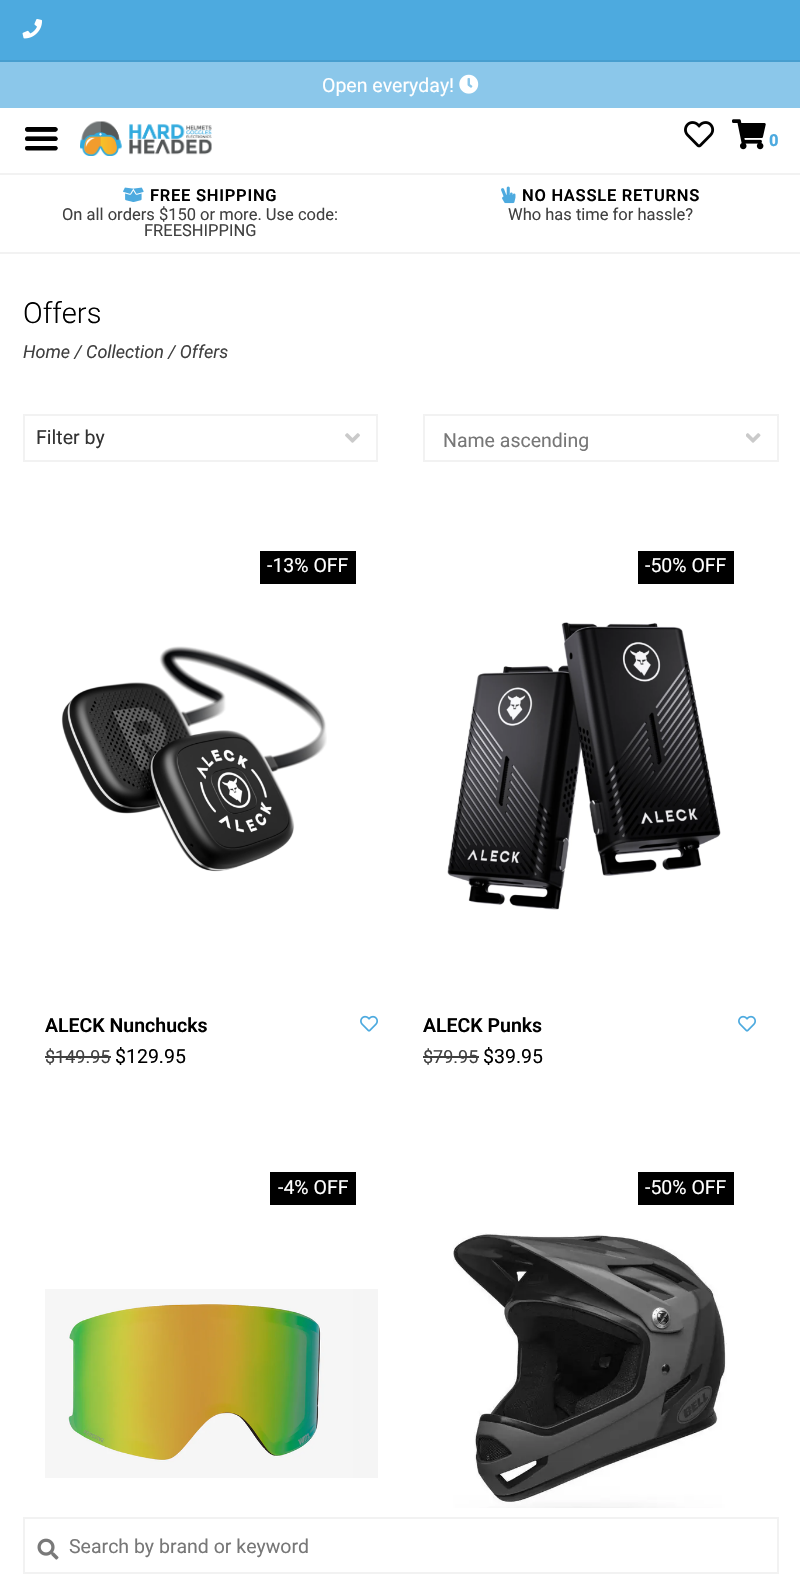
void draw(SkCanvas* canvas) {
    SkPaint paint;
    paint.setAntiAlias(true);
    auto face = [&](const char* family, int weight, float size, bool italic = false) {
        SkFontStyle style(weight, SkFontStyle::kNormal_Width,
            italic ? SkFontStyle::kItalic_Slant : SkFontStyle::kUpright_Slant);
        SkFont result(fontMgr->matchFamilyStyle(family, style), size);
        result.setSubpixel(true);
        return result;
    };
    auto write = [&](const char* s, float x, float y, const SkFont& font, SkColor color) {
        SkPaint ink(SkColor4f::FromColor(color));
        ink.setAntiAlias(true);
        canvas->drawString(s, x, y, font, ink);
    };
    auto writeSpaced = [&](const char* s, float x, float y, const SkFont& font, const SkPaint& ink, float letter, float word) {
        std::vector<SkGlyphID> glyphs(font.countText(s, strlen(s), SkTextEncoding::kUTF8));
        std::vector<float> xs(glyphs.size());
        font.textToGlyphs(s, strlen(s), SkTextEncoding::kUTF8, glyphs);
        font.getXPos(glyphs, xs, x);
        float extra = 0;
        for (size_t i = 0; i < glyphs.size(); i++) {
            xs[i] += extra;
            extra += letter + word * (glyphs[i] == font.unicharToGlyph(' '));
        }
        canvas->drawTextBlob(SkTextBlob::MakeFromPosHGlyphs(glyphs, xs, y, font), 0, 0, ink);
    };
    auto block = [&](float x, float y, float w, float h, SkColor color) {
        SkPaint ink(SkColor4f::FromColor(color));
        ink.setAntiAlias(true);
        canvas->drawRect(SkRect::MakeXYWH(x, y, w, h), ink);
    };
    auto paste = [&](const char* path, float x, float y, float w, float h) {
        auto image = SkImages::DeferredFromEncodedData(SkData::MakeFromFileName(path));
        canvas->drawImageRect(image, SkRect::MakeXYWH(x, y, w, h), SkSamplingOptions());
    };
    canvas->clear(SK_ColorWHITE);
    block(0, 0, 800, 60, SkColorSetRGB(77, 170, 223));
    block(0, 60, 800, 2, SkColorSetRGB(71, 158, 207));
    paste("pic1.png", 22, 19, 20, 20);
    block(0, 62, 800, 46, SkColorSetRGB(139, 199, 234));
    auto kFont1 = face("Roboto", 400, 19.5f);
    write("Open everyday!", 322, 92, kFont1, SK_ColorWHITE);
    paste("pic2.png", 459, 74, 20, 20);
    paste("pic3.png", 25, 127, 33, 24);
    paste("pic4.png", 80, 121, 132, 35);
    paste("pic5.png", 684, 121, 31, 27);
    paste("pic6.png", 732, 119, 34, 31);
    auto kFont2 = face("Roboto", 800, 16.5f);
    write("0", 769, 146, kFont2, SkColorSetRGB(77, 170, 223));
    block(0, 173, 800, 2, SkColorSetRGB(242, 242, 242));
    block(0, 252, 800, 2, SkColorSetRGB(242, 242, 242));
    paste("pic7.png", 123, 187, 21, 15);
    auto kFont3 = face("Roboto", 600, 16.5f);
    paint.setColor(SK_ColorBLACK);
    writeSpaced("FREE SHIPPING", 150, 201, kFont3, paint, 0.75f, 0);
    auto kFont4 = face("Roboto", 400, 16.5f);
    write("On all orders $150 or more. Use code:", 62, 220, kFont4, SkColorSetRGB(64, 64, 64));
    write("FREESHIPPING", 144, 236, kFont4, SkColorSetRGB(64, 64, 64));
    paste("pic8.png", 501, 186, 15, 18);
    writeSpaced("NO HASSLE RETURNS", 522, 201, kFont3, paint, 0.75f, 0);
    write("Who has time for hassle?", 508, 220, kFont4, SkColorSetRGB(64, 64, 64));
    auto kFont5 = face("Roboto", 300, 29);
    write("Offers", 23, 323, kFont5, SK_ColorBLACK);
    auto kFont6 = face("Roboto", 400, 18, true);
    write("Home / Collection / Offers", 23, 358, kFont6, SkColorSetRGB(64, 64, 64));
    paste("pic9.png", 345, 433, 15, 10);
    paint.setStyle(SkPaint::kStroke_Style);
    paint.setStrokeWidth(2);
    paint.setColor(SkColorSetRGB(242, 242, 242));
    canvas->drawRect(SkRect::MakeXYWH(24, 415, 353, 46), paint);
    write("Filter by", 36, 444, kFont1, SkColorSetRGB(51, 51, 51));
    paste("pic10.png", 746, 433, 15, 10);
    canvas->drawRect(SkRect::MakeXYWH(424, 415, 354, 46), paint);
    write("Name ascending", 443, 447, kFont1, SkColorSetRGB(119, 119, 119));
    block(260, 551, 96, 33, SK_ColorBLACK);
    write("-13% OFF", 267, 572, kFont1, SK_ColorWHITE);
    paste("pic11.png", 61, 646, 266, 226);
    auto kFont7 = face("Roboto", 600, 19.5f);
    write("ALECK Nunchucks", 45, 1032, kFont7, SK_ColorBLACK);
    paste("pic12.png", 360, 1015, 18, 17);
    auto kFont8 = face("Roboto", 400, 18);
    write("$149.95", 45, 1063, kFont8, SkColorSetRGB(64, 64, 64));
    block(45, 1056, 66, 2, SkColorSetRGB(64, 64, 64));
    write("$129.95", 115, 1063, kFont1, SK_ColorBLACK);
    block(638, 551, 96, 33, SK_ColorBLACK);
    write("-50% OFF", 645, 572, kFont1, SK_ColorWHITE);
    paste("pic13.png", 447, 622, 274, 288);
    write("ALECK Punks", 423, 1032, kFont7, SK_ColorBLACK);
    paste("pic12.png", 738, 1015, 18, 17);
    write("$79.95", 423, 1063, kFont8, SkColorSetRGB(64, 64, 64));
    block(423, 1056, 56, 2, SkColorSetRGB(64, 64, 64));
    write("$39.95", 483, 1063, kFont1, SK_ColorBLACK);
    block(270, 1172, 86, 33, SK_ColorBLACK);
    write("-4% OFF", 278, 1194, kFont1, SK_ColorWHITE);
    paste("pic14.png", 45, 1289, 333, 189);
    block(638, 1172, 96, 33, SK_ColorBLACK);
    write("-50% OFF", 645, 1194, kFont1, SK_ColorWHITE);
    paste("pic15.png", 453, 1233, 274, 275);
    canvas->drawRect(SkRect::MakeXYWH(24, 1518, 754, 55), paint);
    paste("pic16.png", 37, 1538, 22, 22);
    write("Search by brand or keyword", 69, 1553, kFont1, SkColorSetRGB(119, 119, 119));
}
